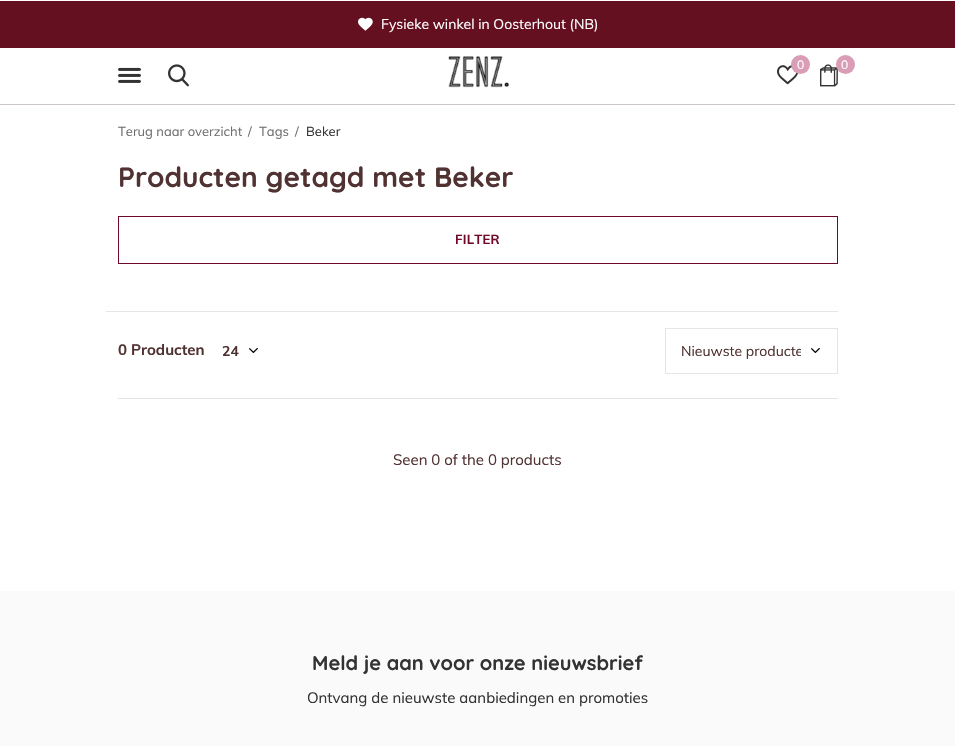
void draw(SkCanvas* canvas) {
    SkPaint paint;
    paint.setAntiAlias(true);
    auto face = [&](const char* family, int weight, float size, bool italic = false) {
        SkFontStyle style(weight, SkFontStyle::kNormal_Width,
            italic ? SkFontStyle::kItalic_Slant : SkFontStyle::kUpright_Slant);
        SkFont result(fontMgr->matchFamilyStyle(family, style), size);
        result.setSubpixel(true);
        return result;
    };
    auto write = [&](const char* s, float x, float y, const SkFont& font, SkColor color) {
        SkPaint ink(SkColor4f::FromColor(color));
        ink.setAntiAlias(true);
        canvas->drawString(s, x, y, font, ink);
    };
    auto writeSpaced = [&](const char* s, float x, float y, const SkFont& font, const SkPaint& ink, float letter, float word) {
        std::vector<SkGlyphID> glyphs(font.countText(s, strlen(s), SkTextEncoding::kUTF8));
        std::vector<float> xs(glyphs.size());
        font.textToGlyphs(s, strlen(s), SkTextEncoding::kUTF8, glyphs);
        font.getXPos(glyphs, xs, x);
        float extra = 0;
        for (size_t i = 0; i < glyphs.size(); i++) {
            xs[i] += extra;
            extra += letter + word * (glyphs[i] == font.unicharToGlyph(' '));
        }
        canvas->drawTextBlob(SkTextBlob::MakeFromPosHGlyphs(glyphs, xs, y, font), 0, 0, ink);
    };
    auto block = [&](float x, float y, float w, float h, SkColor color) {
        SkPaint ink(SkColor4f::FromColor(color));
        ink.setAntiAlias(true);
        canvas->drawRect(SkRect::MakeXYWH(x, y, w, h), ink);
    };
    auto paste = [&](const char* path, float x, float y, float w, float h) {
        auto image = SkImages::DeferredFromEncodedData(SkData::MakeFromFileName(path));
        canvas->drawImageRect(image, SkRect::MakeXYWH(x, y, w, h), SkSamplingOptions());
    };
    canvas->clear(SK_ColorWHITE);
    block(0, 1, 955, 47, SkColorSetRGB(100, 16, 32));
    paste("pic1.png", 358, 17, 15, 14);
    auto kFont1 = face("Muli", 400, 14);
    write("Fysieke winkel in Oosterhout (NB)", 381, 29, kFont1, SK_ColorWHITE);
    paste("pic2.png", 448, 56, 61, 32);
    paste("pic3.png", 168, 64, 21, 23);
    paste("pic4.png", 777, 65, 21, 20);
    paint.setColor(SkColorSetRGB(217, 157, 182));
    canvas->drawCircle(800.5f, 64.5f, 9.5f, paint);
    auto kFont2 = face("Muli", 400, 12);
    write("0", 797, 69, kFont2, SK_ColorWHITE);
    paste("pic5.png", 820, 64, 18, 23);
    canvas->drawCircle(845.5f, 64.5f, 9.5f, paint);
    write("0", 841, 69, kFont2, SK_ColorWHITE);
    paste("pic6.png", 118, 67, 23, 16);
    block(0, 104, 955, 1, SkColorSetRGB(204, 198, 198));
    auto kFont3 = face("Muli", 400, 13);
    write("Terug naar overzicht", 118, 136, kFont3, SkColorSetRGB(112, 112, 112));
    write("/", 248, 136, kFont3, SkColorSetRGB(112, 112, 112));
    write("Tags", 259, 136, kFont3, SkColorSetRGB(112, 112, 112));
    write("/", 295, 136, kFont3, SkColorSetRGB(112, 112, 112));
    write("Beker", 306, 136, kFont3, SkColorSetRGB(51, 51, 51));
    auto kFont4 = face("Quicksand", 700, 28);
    write("Producten getagd met Beker", 118, 187, kFont4, SkColorSetRGB(81, 50, 50));
    paint.setStyle(SkPaint::kStroke_Style);
    paint.setStrokeWidth(1);
    paint.setColor(SkColorSetRGB(112, 9, 40));
    canvas->drawRect(SkRect::MakeXYWH(118.5f, 216.5f, 719, 47), paint);
    auto kFont5 = face("Muli", 700, 13);
    paint.setStyle(SkPaint::kFill_Style);
    writeSpaced("FILTER", 455, 244, kFont5, paint, 0.25f, 0);
    block(106, 311, 732, 1, SkColorSetRGB(229, 229, 229));
    auto kFont6 = face("Muli", 700, 15);
    write("0 Producten", 118, 355, kFont6, SkColorSetRGB(81, 50, 50));
    paste("pic7.png", 249, 348, 9, 5);
    auto kFont7 = face("Muli", 700, 14);
    write("24", 222, 356, kFont7, SkColorSetRGB(81, 50, 50));
    paste("pic7.png", 811, 348, 9, 5);
    paint.setStyle(SkPaint::kStroke_Style);
    paint.setColor(SkColorSetRGB(229, 229, 229));
    canvas->drawRect(SkRect::MakeXYWH(665.5f, 328.5f, 172, 45), paint);
    canvas->save();
    canvas->clipRect(SkRect::MakeXYWH(681, 342, 120, 18));
    write("Nieuwste producte", 681, 356, kFont1, SkColorSetRGB(81, 50, 50));
    canvas->restore();
    block(118, 398, 720, 1, SkColorSetRGB(229, 229, 229));
    auto kFont8 = face("Muli", 400, 15);
    write("Seen 0 of the 0 products", 393, 465, kFont8, SkColorSetRGB(81, 50, 50));
    block(0, 591, 955, 155, SkColorSetRGB(250, 250, 250));
    auto kFont9 = face("Quicksand", 700, 20);
    write("Meld je aan voor onze nieuwsbrief", 312, 670, kFont9, SkColorSetRGB(51, 51, 51));
    write("Ontvang de nieuwste aanbiedingen en promoties", 307, 703, kFont8, SkColorSetRGB(51, 51, 51));
}
